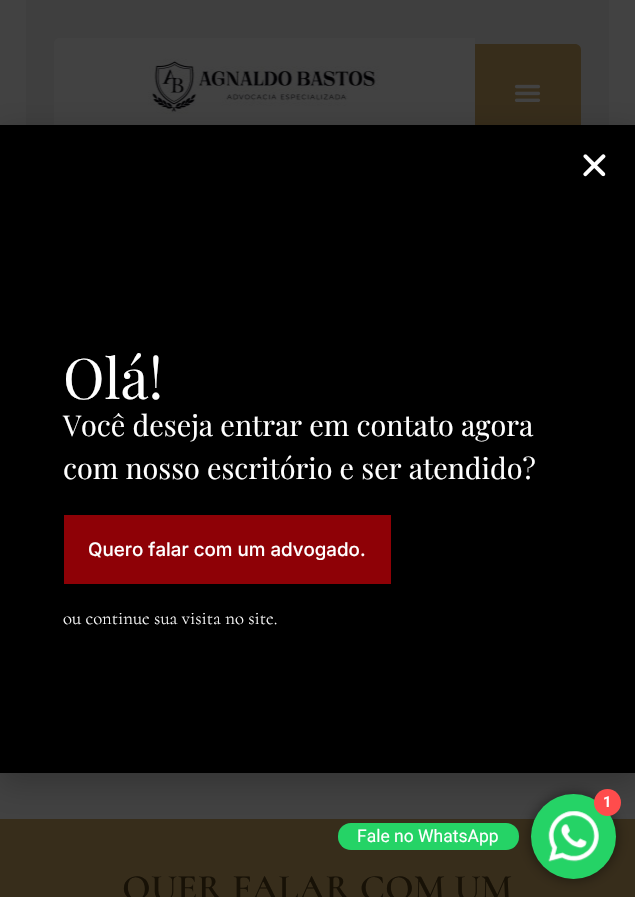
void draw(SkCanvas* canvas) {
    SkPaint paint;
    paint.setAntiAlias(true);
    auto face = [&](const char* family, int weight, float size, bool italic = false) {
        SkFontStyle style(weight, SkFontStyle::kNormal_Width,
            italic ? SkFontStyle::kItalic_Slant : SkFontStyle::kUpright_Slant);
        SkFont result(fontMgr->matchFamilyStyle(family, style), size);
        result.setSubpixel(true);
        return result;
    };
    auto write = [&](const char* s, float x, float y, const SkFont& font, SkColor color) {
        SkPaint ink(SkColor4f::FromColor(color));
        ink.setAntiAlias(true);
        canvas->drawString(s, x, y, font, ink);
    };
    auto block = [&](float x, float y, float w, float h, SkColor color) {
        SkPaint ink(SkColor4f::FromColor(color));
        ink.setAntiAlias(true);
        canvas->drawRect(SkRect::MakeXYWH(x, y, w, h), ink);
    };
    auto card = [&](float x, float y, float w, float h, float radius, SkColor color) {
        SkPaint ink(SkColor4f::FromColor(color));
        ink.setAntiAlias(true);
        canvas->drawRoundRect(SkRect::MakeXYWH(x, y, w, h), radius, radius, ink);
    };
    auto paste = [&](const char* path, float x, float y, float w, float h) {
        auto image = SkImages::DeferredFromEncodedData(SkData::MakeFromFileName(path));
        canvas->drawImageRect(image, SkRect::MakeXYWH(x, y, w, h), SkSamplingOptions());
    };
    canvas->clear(SkColorSetRGB(66, 66, 66));
    block(26, 0, 583, 125, SkColorSetRGB(63, 63, 63));
    paint.setColor(SkColorSetRGB(66, 66, 66));
    canvas->drawPath(SkPathBuilder().moveTo(60, 38).lineTo(475, 38).lineTo(475, 148).lineTo(60, 148).cubicTo(56.5f, 148, 54, 145.5f, 54, 142).lineTo(54, 44).cubicTo(54, 40.5f, 56.5f, 38, 60, 38).close().detach(), paint);
    paste("pic1.png", 148, 58, 232, 56);
    paint.setColor(SkColorSetRGB(55, 45, 27));
    canvas->drawPath(SkPathBuilder().moveTo(475, 44).lineTo(575, 44).cubicTo(578.5f, 44, 581, 46.5f, 581, 50).lineTo(581, 137).cubicTo(581, 140.5f, 578.5f, 143, 575, 143).lineTo(475, 143).close().detach(), paint);
    paste("pic2.png", 514, 84, 27, 18);
    block(0, 819, 635, 78, SkColorSetRGB(55, 45, 27));
    paint.setColor(SkColorSetARGB(51, 0, 0, 0));
    paint.setMaskFilter(SkMaskFilter::MakeBlur(kNormal_SkBlurStyle, 14.5f));
    canvas->drawRect(SkRect::MakeXYWH(-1, 131, 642, 655), paint);
    paint.setMaskFilter(nullptr);
    block(0, 125, 635, 648, SK_ColorBLACK);
    paste("pic3.png", 583, 154, 23, 23);
    auto kFont1 = face("Playfair Display", 400, 56);
    write("Olá!", 63, 399, kFont1, SK_ColorWHITE);
    auto kFont2 = face("Playfair Display", 400, 28.75f);
    write("Você deseja entrar em contato agora", 63, 436, kFont2, SK_ColorWHITE);
    write("com nosso escritório e ser atendido?", 63, 479, kFont2, SK_ColorWHITE);
    block(64, 515, 327, 69, SkColorSetRGB(142, 1, 6));
    auto kFont3 = face("Inter", 500, 18.75f);
    write("Quero falar com um advogado.", 88, 556, kFont3, SK_ColorWHITE);
    auto kFont4 = face("Cormorant", 300, 18.75f);
    write("ou continue sua visita no site.", 63, 624, kFont4, SK_ColorWHITE);
    card(338, 823, 181, 27, 13, SkColorSetRGB(37, 211, 102));
    paint.setColor(SkColorSetARGB(128, 0, 0, 0));
    paint.setMaskFilter(SkMaskFilter::MakeBlur(kNormal_SkBlurStyle, 7));
    canvas->drawRoundRect(SkRect::MakeXYWH(531, 794, 85, 85), 42.5f, 42.5f, paint);
    paint.setMaskFilter(nullptr);
    paint.setColor(SkColorSetRGB(37, 211, 102));
    canvas->drawCircle(573.5f, 836.5f, 42.5f, paint);
    paste("pic4.png", 548, 811, 51, 51);
    paint.setColor(SkColorSetRGB(255, 76, 76));
    canvas->drawCircle(607.5f, 802.5f, 13.5f, paint);
    auto kFont5 = face("Roboto", 600, 15);
    write("1", 603, 807, kFont5, SK_ColorWHITE);
    auto kFont6 = face("Roboto", 400, 17.5f);
    write("Fale no WhatsApp", 357, 842, kFont6, SK_ColorWHITE);
    auto kFont7 = face("Cormorant", 600, 37.5f);
    write("QUER FALAR COM UM", 122, 900, kFont7, SkColorSetRGB(23, 17, 6));
}
